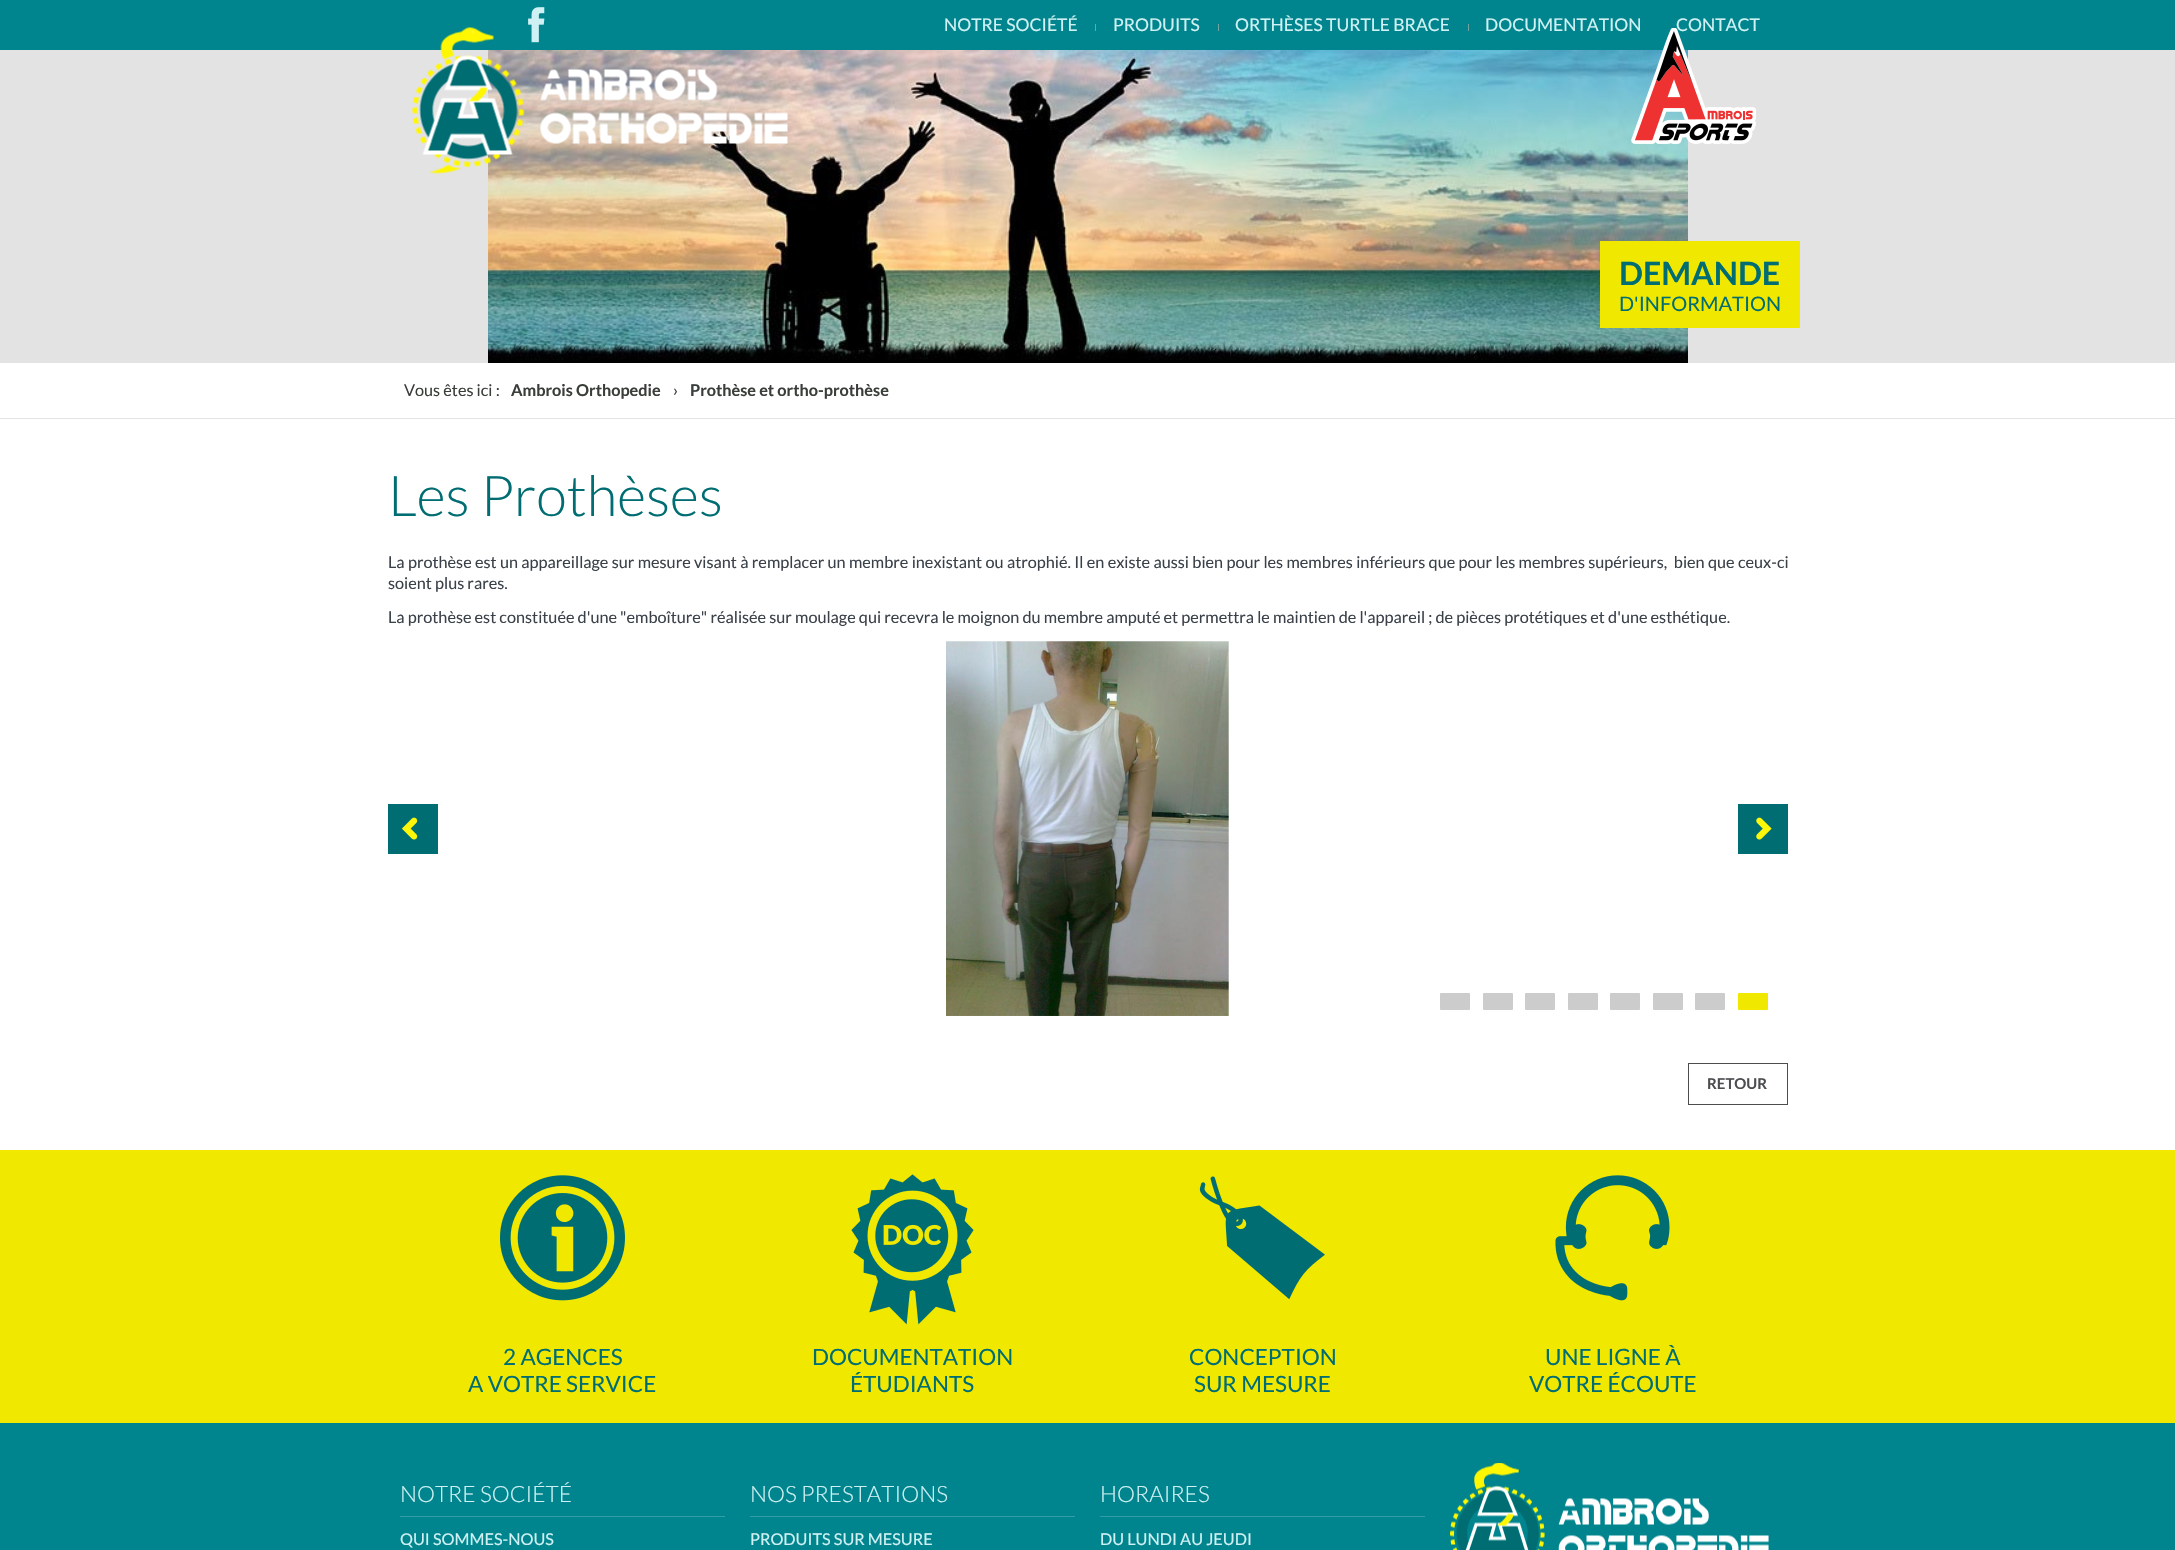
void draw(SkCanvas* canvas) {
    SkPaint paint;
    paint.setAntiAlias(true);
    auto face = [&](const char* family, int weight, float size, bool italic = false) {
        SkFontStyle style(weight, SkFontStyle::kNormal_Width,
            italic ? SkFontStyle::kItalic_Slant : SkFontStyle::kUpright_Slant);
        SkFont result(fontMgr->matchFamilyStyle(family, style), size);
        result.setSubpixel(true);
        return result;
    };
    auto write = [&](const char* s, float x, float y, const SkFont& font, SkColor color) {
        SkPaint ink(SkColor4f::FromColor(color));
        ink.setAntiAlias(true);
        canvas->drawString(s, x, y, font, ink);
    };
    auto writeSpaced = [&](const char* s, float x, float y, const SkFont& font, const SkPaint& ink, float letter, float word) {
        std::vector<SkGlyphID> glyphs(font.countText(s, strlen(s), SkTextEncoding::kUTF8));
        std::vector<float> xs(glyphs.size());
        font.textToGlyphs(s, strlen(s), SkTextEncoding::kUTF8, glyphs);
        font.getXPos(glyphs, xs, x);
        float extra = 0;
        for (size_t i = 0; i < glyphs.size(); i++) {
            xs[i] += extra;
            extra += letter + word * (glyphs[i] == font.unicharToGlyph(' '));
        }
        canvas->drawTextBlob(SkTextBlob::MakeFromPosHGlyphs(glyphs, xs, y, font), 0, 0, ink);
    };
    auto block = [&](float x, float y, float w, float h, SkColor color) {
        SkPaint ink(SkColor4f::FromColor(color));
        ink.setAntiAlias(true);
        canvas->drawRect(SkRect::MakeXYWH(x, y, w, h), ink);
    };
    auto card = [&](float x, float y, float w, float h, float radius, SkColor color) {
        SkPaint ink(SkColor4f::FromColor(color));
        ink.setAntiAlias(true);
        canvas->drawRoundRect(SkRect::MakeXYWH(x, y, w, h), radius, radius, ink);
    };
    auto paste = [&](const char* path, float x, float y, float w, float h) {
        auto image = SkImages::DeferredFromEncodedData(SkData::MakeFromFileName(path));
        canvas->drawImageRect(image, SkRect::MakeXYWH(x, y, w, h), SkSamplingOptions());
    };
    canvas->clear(SK_ColorWHITE);
    block(0, 0, 2175, 50, SkColorSetRGB(0, 133, 142));
    block(0, 50, 2175, 313, SkColorSetRGB(227, 227, 227));
    paste("pic4.png", 488, 50, 1200, 313);
    paste("pic2.png", 412, 27, 376, 147);
    paste("pic1.png", 528, 7, 17, 36);
    auto kFont1 = face("Lato", 400, 17.5f);
    write("NOTRE SOCIÉTÉ", 944, 31, kFont1, SkColorSetRGB(208, 241, 243));
    block(1095, 24, 1, 7, SkColorSetRGB(116, 162, 165));
    write("PRODUITS", 1113, 31, kFont1, SkColorSetRGB(208, 241, 243));
    block(1218, 24, 1, 7, SkColorSetRGB(116, 162, 165));
    write("ORTHÈSES TURTLE BRACE", 1235, 31, kFont1, SkColorSetRGB(208, 241, 243));
    block(1468, 24, 1, 7, SkColorSetRGB(116, 162, 165));
    paste("pic3.png", 1631, 28, 125, 116);
    write("DOCUMENTATION", 1485, 31, kFont1, SkColorSetRGB(208, 241, 243));
    write("CONTACT", 1676, 31, kFont1, SkColorSetRGB(208, 241, 243));
    block(1600, 241, 200, 87, SkColorSetRGB(241, 232, 0));
    auto kFont2 = face("Lato", 700, 32);
    write("DEMANDE", 1619, 285, kFont2, SkColorSetRGB(0, 109, 115));
    auto kFont3 = face("Lato", 400, 20);
    write("D'INFORMATION", 1619, 311, kFont3, SkColorSetRGB(0, 109, 115));
    block(0, 418, 2175, 1, SkColorSetRGB(227, 227, 227));
    auto kFont4 = face("Lato", 400, 16.25f);
    write("Vous êtes ici :", 404, 396, kFont4, SkColorSetRGB(58, 62, 57));
    auto kFont5 = face("Lato", 700, 16.25f);
    write("Ambrois Orthopedie", 511, 396, kFont5, SkColorSetRGB(58, 62, 57));
    write("›", 673, 396, kFont4, SkColorSetRGB(58, 62, 57));
    write("Prothèse et ortho-prothèse", 690, 396, kFont5, SkColorSetRGB(58, 62, 57));
    auto kFont6 = face("Lato", 300, 56.25f);
    write("Les Prothèses", 388, 516, kFont6, SkColorSetRGB(0, 109, 115));
    paint.setColor(SkColorSetRGB(58, 65, 73));
    writeSpaced("La prothèse est un appareillage sur mesure visant à remplacer un membre inexistant ou atrophié. Il en existe aussi bien pour les membres inférieurs que pour les membres supérieurs,  bien que ceux-ci", 388, 568, kFont4, paint, 0, 0.2f);
    write("soient plus rares.", 388, 589, kFont4, SkColorSetRGB(58, 65, 73));
    write("La prothèse est constituée d'une \"emboîture\" réalisée sur moulage qui recevra le moignon du membre amputé et permettra le maintien de l'appareil ; de pièces protétiques et d'une esthétique.", 388, 623, kFont4, SkColorSetRGB(58, 65, 73));
    paste("pic5.png", 946, 641, 283, 375);
    block(388, 804, 50, 50, SkColorSetRGB(0, 109, 115));
    paste("pic6.png", 401, 817, 17, 23);
    block(1738, 804, 50, 50, SkColorSetRGB(0, 109, 115));
    paste("pic7.png", 1756, 817, 16, 23);
    card(1440, 993, 30, 17, 1, SkColorSetRGB(204, 204, 204));
    card(1483, 993, 30, 17, 1, SkColorSetRGB(204, 204, 204));
    card(1525, 993, 30, 17, 1, SkColorSetRGB(204, 204, 204));
    card(1568, 993, 30, 17, 1, SkColorSetRGB(204, 204, 204));
    card(1610, 993, 30, 17, 1, SkColorSetRGB(204, 204, 204));
    card(1653, 993, 30, 17, 1, SkColorSetRGB(204, 204, 204));
    card(1695, 993, 30, 17, 1, SkColorSetRGB(204, 204, 204));
    card(1738, 993, 30, 17, 1, SkColorSetRGB(241, 232, 0));
    paint.setStyle(SkPaint::kStroke_Style);
    paint.setStrokeWidth(1);
    paint.setColor(SkColorSetRGB(76, 77, 79));
    canvas->drawRect(SkRect::MakeXYWH(1688.5f, 1063.5f, 99, 41), paint);
    auto kFont7 = face("Lato", 700, 15);
    write("RETOUR", 1707, 1089, kFont7, SkColorSetRGB(76, 77, 79));
    block(0, 1150, 2175, 273, SkColorSetRGB(241, 232, 0));
    paste("pic8.png", 500, 1175, 125, 126);
    auto kFont8 = face("Lato", 400, 22.5f);
    write("2 AGENCES", 503, 1365, kFont8, SkColorSetRGB(0, 109, 115));
    write("A VOTRE SERVICE", 468, 1392, kFont8, SkColorSetRGB(0, 109, 115));
    paste("pic9.png", 851, 1174, 123, 151);
    write("DOCUMENTATION", 812, 1365, kFont8, SkColorSetRGB(0, 109, 115));
    write("ÉTUDIANTS", 850, 1392, kFont8, SkColorSetRGB(0, 109, 115));
    paste("pic10.png", 1199, 1176, 126, 124);
    write("CONCEPTION", 1189, 1365, kFont8, SkColorSetRGB(0, 109, 115));
    write("SUR MESURE", 1194, 1392, kFont8, SkColorSetRGB(0, 109, 115));
    paste("pic11.png", 1555, 1175, 115, 126);
    write("UNE LIGNE À", 1545, 1365, kFont8, SkColorSetRGB(0, 109, 115));
    write("VOTRE ÉCOUTE", 1529, 1392, kFont8, SkColorSetRGB(0, 109, 115));
    block(0, 1423, 2175, 127, SkColorSetRGB(0, 133, 142));
    auto kFont9 = face("Lato", 300, 22.5f);
    write("NOTRE SOCIÉTÉ", 400, 1502, kFont9, SkColorSetRGB(208, 241, 243));
    block(400, 1516, 325, 1, SkColorSetRGB(51, 157, 165));
    write("QUI SOMMES-NOUS", 400, 1545, kFont4, SkColorSetRGB(208, 241, 243));
    write("NOS PRESTATIONS", 750, 1502, kFont9, SkColorSetRGB(208, 241, 243));
    block(750, 1516, 325, 1, SkColorSetRGB(51, 157, 165));
    write("PRODUITS SUR MESURE", 750, 1545, kFont4, SkColorSetRGB(208, 241, 243));
    write("HORAIRES", 1100, 1502, kFont9, SkColorSetRGB(208, 241, 243));
    block(1100, 1516, 325, 1, SkColorSetRGB(51, 157, 165));
    write("DU LUNDI AU JEUDI", 1100, 1545, kFont4, SkColorSetRGB(208, 241, 243));
    paste("pic12.png", 1450, 1463, 319, 87);
}
